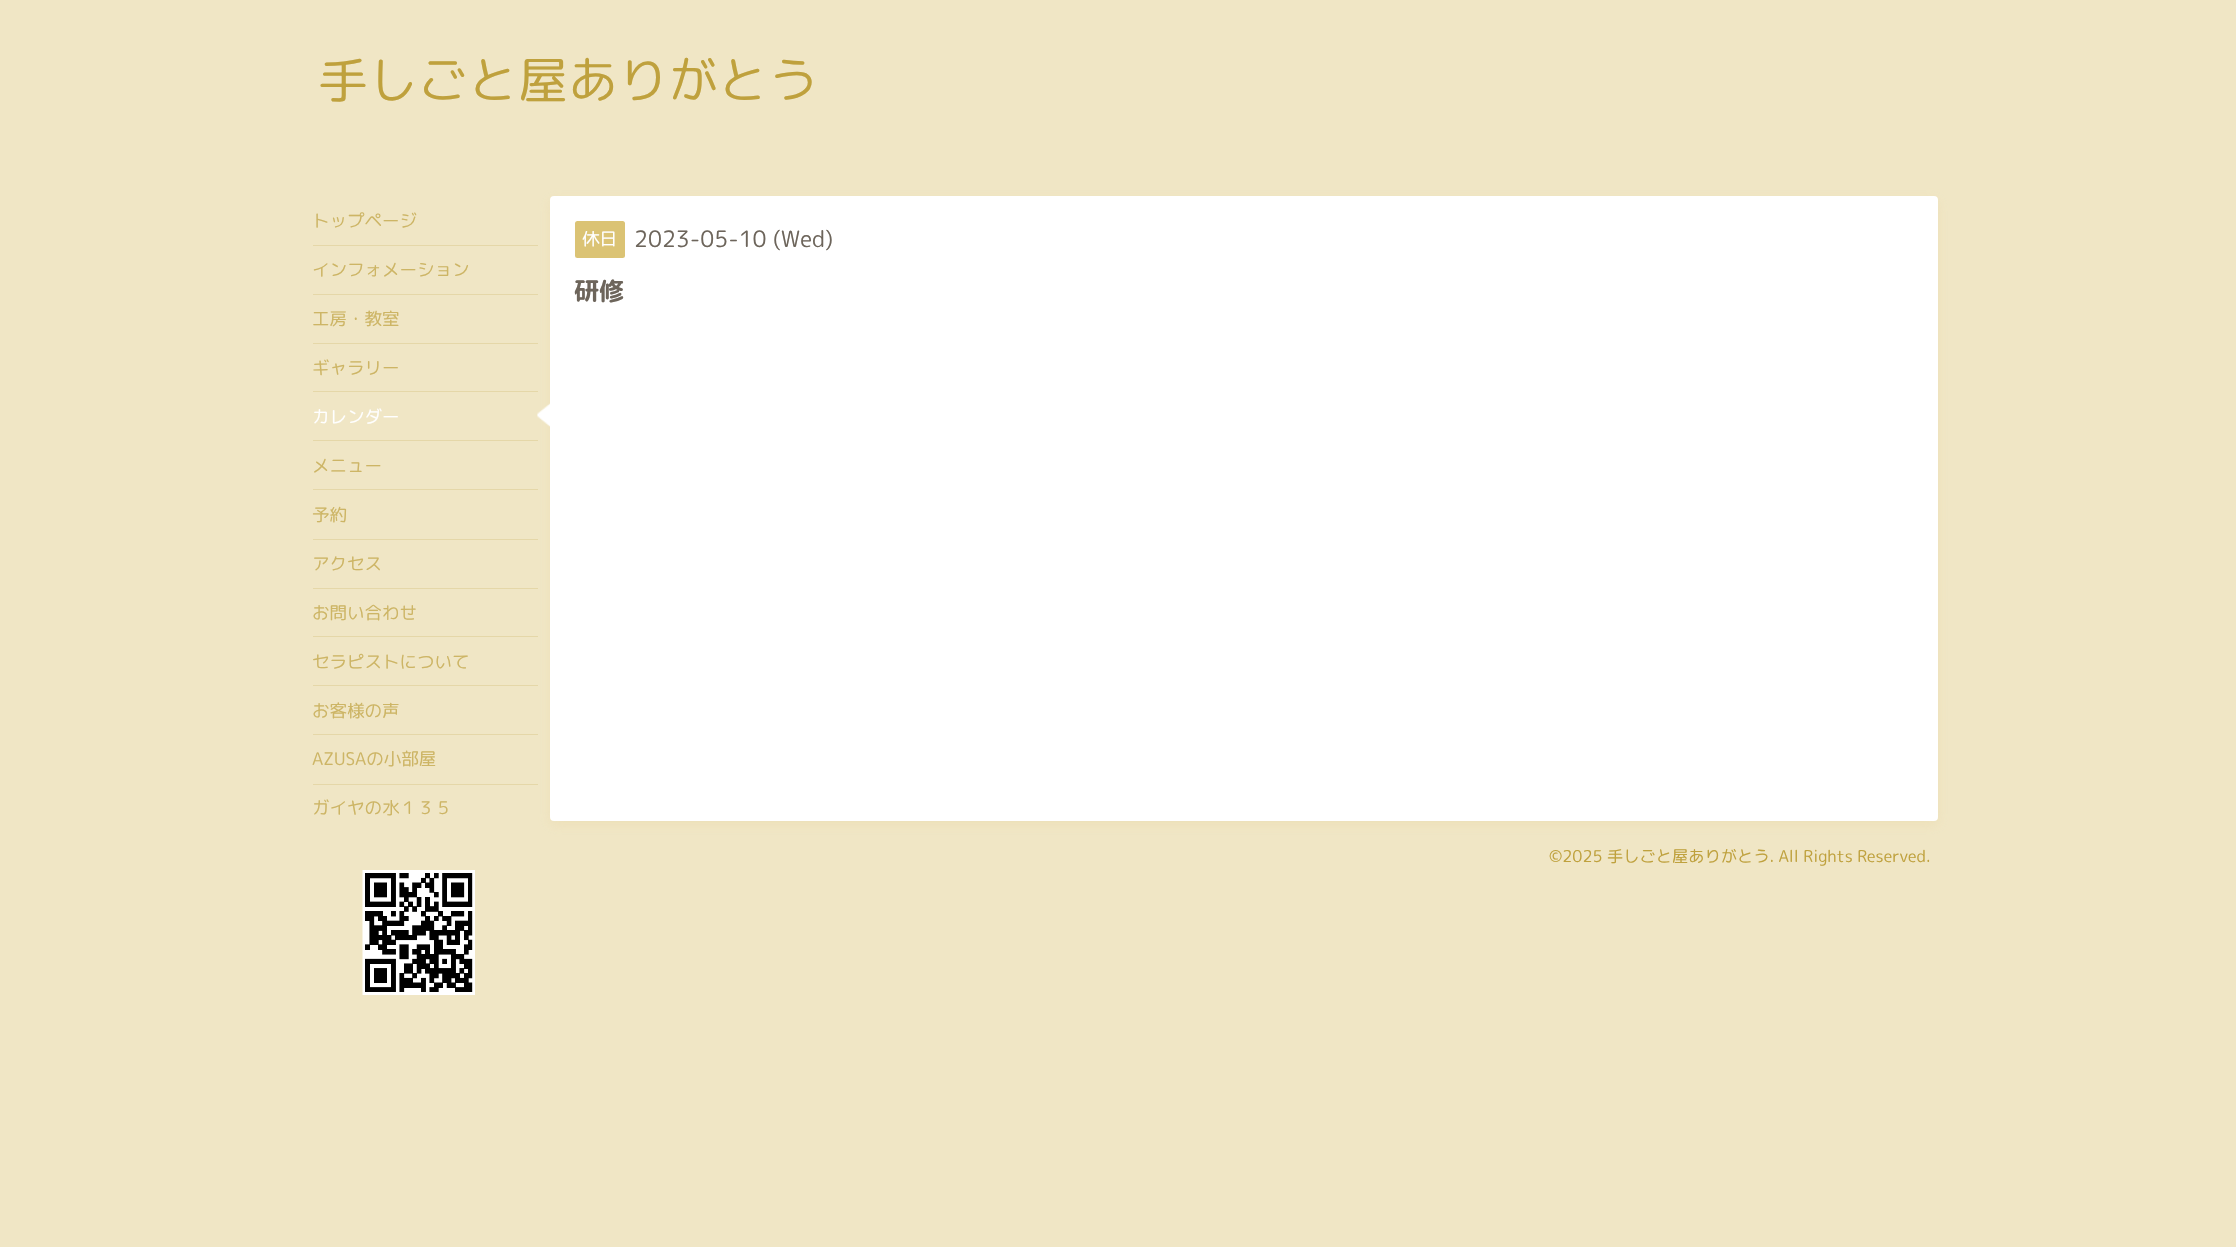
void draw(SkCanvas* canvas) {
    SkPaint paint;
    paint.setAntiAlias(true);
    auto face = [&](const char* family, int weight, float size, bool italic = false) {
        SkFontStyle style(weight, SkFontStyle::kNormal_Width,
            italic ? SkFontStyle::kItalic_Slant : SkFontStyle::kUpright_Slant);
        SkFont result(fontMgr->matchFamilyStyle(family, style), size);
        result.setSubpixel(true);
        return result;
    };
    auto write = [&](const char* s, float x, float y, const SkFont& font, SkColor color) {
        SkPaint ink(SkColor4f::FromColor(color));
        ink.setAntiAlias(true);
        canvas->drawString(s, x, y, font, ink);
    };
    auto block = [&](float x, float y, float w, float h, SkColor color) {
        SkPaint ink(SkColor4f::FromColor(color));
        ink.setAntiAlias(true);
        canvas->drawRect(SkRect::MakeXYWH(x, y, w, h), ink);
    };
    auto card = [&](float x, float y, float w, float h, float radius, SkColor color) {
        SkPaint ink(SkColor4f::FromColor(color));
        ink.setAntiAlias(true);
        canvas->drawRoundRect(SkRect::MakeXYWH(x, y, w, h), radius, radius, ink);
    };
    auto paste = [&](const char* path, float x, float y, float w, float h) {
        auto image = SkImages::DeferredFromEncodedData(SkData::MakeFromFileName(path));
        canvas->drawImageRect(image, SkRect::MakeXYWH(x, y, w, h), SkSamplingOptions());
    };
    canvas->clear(SkColorSetRGB(240, 230, 197));
    auto kFont1 = face("Rounded Mplus 1c", 400, 50);
    write("手しごと屋ありがとう", 318, 98, kFont1, SkColorSetRGB(191, 161, 61));
    auto kFont2 = face("Rounded Mplus 1c", 400, 17.5f);
    write("トップページ", 312, 227, kFont2, SkColorSetRGB(205, 181, 101));
    paint.setColor(SkColorSetARGB(102, 232, 216, 165));
    paint.setMaskFilter(SkMaskFilter::MakeBlur(kNormal_SkBlurStyle, 6));
    canvas->drawRoundRect(SkRect::MakeXYWH(550, 200, 1388, 625), 4, 4, paint);
    paint.setMaskFilter(nullptr);
    block(313, 245, 225, 1, SkColorSetRGB(229, 215, 168));
    write("インフォメーション", 312, 276, kFont2, SkColorSetRGB(205, 181, 101));
    block(313, 294, 225, 1, SkColorSetRGB(229, 215, 168));
    write("工房・教室", 312, 325, kFont2, SkColorSetRGB(205, 181, 101));
    block(313, 343, 225, 1, SkColorSetRGB(229, 215, 168));
    write("ギャラリー", 312, 374, kFont2, SkColorSetRGB(205, 181, 101));
    paste("pic1.png", 537, 403, 13, 24);
    block(313, 391, 225, 1, SkColorSetRGB(229, 215, 168));
    write("カレンダー", 312, 423, kFont2, SK_ColorWHITE);
    block(313, 440, 225, 1, SkColorSetRGB(229, 215, 168));
    write("メニュー", 312, 472, kFont2, SkColorSetRGB(205, 181, 101));
    block(313, 489, 225, 1, SkColorSetRGB(229, 215, 168));
    write("予約", 312, 521, kFont2, SkColorSetRGB(205, 181, 101));
    block(313, 539, 225, 1, SkColorSetRGB(229, 215, 168));
    write("アクセス", 312, 570, kFont2, SkColorSetRGB(205, 181, 101));
    block(313, 588, 225, 1, SkColorSetRGB(229, 215, 168));
    write("お問い合わせ", 312, 619, kFont2, SkColorSetRGB(205, 181, 101));
    block(313, 636, 225, 1, SkColorSetRGB(229, 215, 168));
    write("セラピストについて", 312, 668, kFont2, SkColorSetRGB(205, 181, 101));
    block(313, 685, 225, 1, SkColorSetRGB(229, 215, 168));
    write("お客様の声", 312, 717, kFont2, SkColorSetRGB(205, 181, 101));
    block(313, 734, 225, 1, SkColorSetRGB(229, 215, 168));
    write("AZUSAの小部屋", 312, 765, kFont2, SkColorSetRGB(205, 181, 101));
    block(313, 784, 225, 1, SkColorSetRGB(229, 215, 168));
    write("ガイヤの水１３５", 312, 814, kFont2, SkColorSetRGB(205, 181, 101));
    paste("pic2.png", 362, 870, 113, 125);
    card(550, 196, 1388, 625, 4, SK_ColorWHITE);
    card(575, 221, 50, 37, 2.5f, SkColorSetRGB(219, 195, 116));
    write("休日", 582, 245, kFont2, SK_ColorWHITE);
    auto kFont3 = face("Rounded Mplus 1c", 400, 22.5f);
    write("2023-05-10 (Wed)", 634, 247, kFont3, SkColorSetRGB(109, 101, 91));
    auto kFont4 = face("Rounded Mplus 1c Bold", 700, 25);
    write("研修", 574, 300, kFont4, SkColorSetRGB(109, 101, 91));
    auto kFont5 = face("Rounded Mplus 1c", 400, 16.25f);
    write("©2025 手しごと屋ありがとう. All Rights Reserved.", 1549, 862, kFont5, SkColorSetRGB(191, 161, 61));
}
